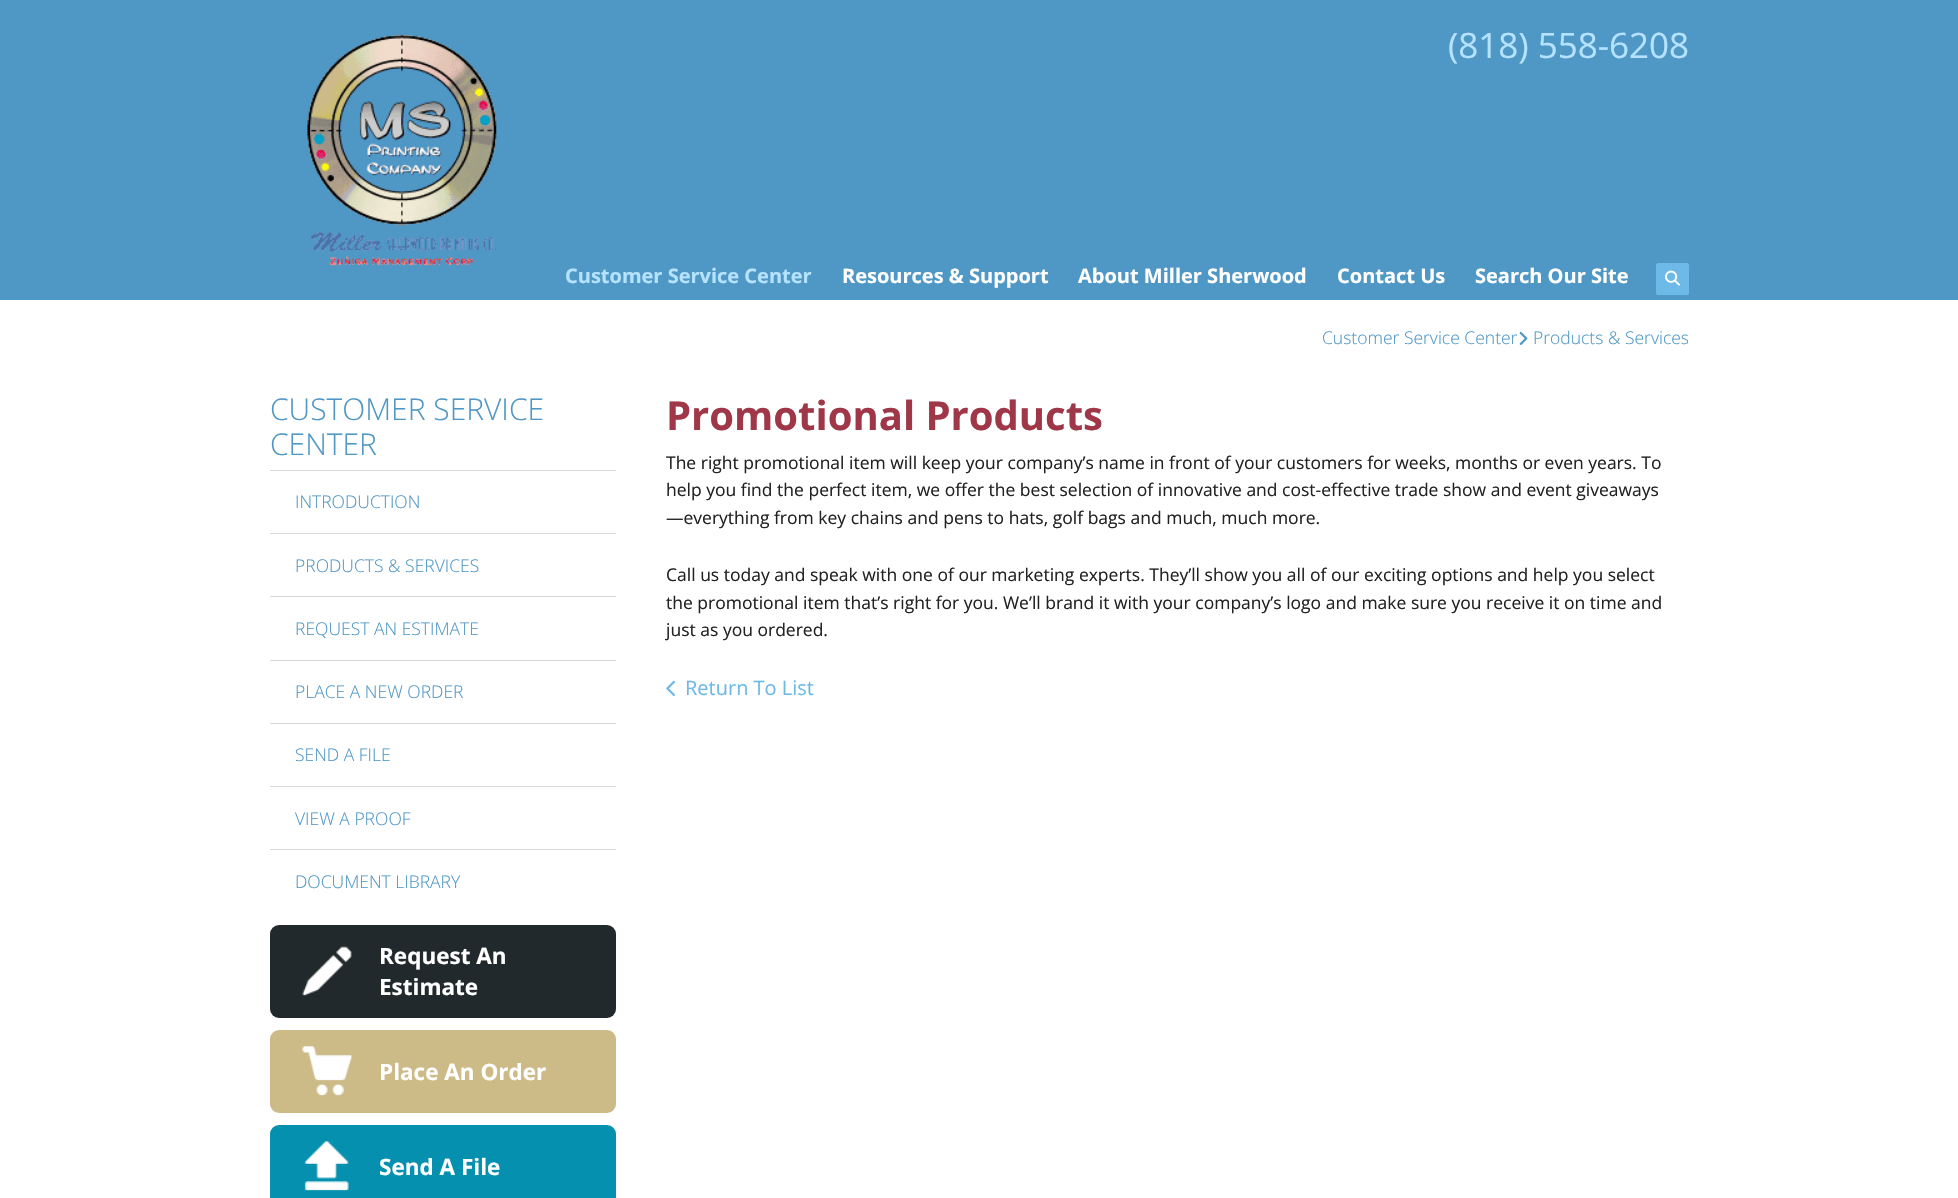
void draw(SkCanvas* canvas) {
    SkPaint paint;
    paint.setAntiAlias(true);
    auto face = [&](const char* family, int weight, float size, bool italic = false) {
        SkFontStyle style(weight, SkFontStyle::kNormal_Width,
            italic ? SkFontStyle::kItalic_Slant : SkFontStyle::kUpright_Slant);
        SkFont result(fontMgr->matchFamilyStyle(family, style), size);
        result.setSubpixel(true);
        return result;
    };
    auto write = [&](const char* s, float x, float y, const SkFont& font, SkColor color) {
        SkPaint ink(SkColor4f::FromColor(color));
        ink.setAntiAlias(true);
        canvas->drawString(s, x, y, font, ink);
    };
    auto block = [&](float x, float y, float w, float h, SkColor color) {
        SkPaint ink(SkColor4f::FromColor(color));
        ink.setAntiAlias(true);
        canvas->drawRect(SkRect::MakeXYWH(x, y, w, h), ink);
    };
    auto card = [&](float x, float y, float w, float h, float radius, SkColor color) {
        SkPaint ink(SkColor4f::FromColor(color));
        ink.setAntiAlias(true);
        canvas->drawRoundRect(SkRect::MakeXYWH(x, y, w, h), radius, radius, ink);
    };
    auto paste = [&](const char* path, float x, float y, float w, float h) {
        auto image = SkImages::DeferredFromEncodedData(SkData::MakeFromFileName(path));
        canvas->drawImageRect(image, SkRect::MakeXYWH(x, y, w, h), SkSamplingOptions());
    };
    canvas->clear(SkColorSetRGB(79, 151, 197));
    paste("pic1.png", 307, 34, 190, 232);
    auto kFont1 = face("Open Sans", 400, 35);
    write("(818) 558-6208", 1448, 58, kFont1, SkColorSetRGB(180, 226, 255));
    auto kFont2 = face("Open Sans", 700, 20);
    write("Customer Service Center", 565, 283, kFont2, SkColorSetRGB(180, 226, 255));
    write("Resources & Support", 842, 283, kFont2, SK_ColorWHITE);
    write("About Miller Sherwood", 1078, 283, kFont2, SK_ColorWHITE);
    write("Contact Us", 1337, 283, kFont2, SK_ColorWHITE);
    write("Search Our Site", 1475, 283, kFont2, SK_ColorWHITE);
    card(1656, 263, 33, 32, 2.5f, SkColorSetRGB(109, 185, 231));
    paste("pic2.png", 1665, 270, 15, 16);
    block(0, 300, 1958, 898, SK_ColorWHITE);
    auto kFont3 = face("Open Sans", 300, 17.5f);
    write("Customer Service Center", 1322, 344, kFont3, SkColorSetRGB(79, 151, 197));
    paste("pic3.png", 1519, 331, 9, 14);
    write("Products & Services", 1533, 344, kFont3, SkColorSetRGB(79, 151, 197));
    block(270, 470, 346, 1, SkColorSetRGB(216, 216, 216));
    auto kFont4 = face("Open Sans", 300, 30);
    write("CUSTOMER SERVICE", 270, 420, kFont4, SkColorSetRGB(79, 151, 197));
    write("CENTER", 270, 455, kFont4, SkColorSetRGB(79, 151, 197));
    block(270, 533, 346, 1, SkColorSetRGB(216, 216, 216));
    write("INTRODUCTION", 295, 508, kFont3, SkColorSetRGB(79, 151, 197));
    block(270, 596, 346, 1, SkColorSetRGB(216, 216, 216));
    write("PRODUCTS & SERVICES", 295, 572, kFont3, SkColorSetRGB(79, 151, 197));
    block(270, 660, 346, 1, SkColorSetRGB(216, 216, 216));
    write("REQUEST AN ESTIMATE", 295, 635, kFont3, SkColorSetRGB(79, 151, 197));
    block(270, 723, 346, 1, SkColorSetRGB(216, 216, 216));
    write("PLACE A NEW ORDER", 295, 698, kFont3, SkColorSetRGB(79, 151, 197));
    block(270, 786, 346, 1, SkColorSetRGB(216, 216, 216));
    write("SEND A FILE", 295, 761, kFont3, SkColorSetRGB(79, 151, 197));
    block(270, 849, 346, 1, SkColorSetRGB(216, 216, 216));
    write("VIEW A PROOF", 295, 825, kFont3, SkColorSetRGB(79, 151, 197));
    write("DOCUMENT LIBRARY", 295, 888, kFont3, SkColorSetRGB(79, 151, 197));
    card(270, 925, 346, 93, 9, SkColorSetRGB(33, 41, 45));
    paste("pic4.png", 302, 946, 50, 50);
    auto kFont5 = face("Open Sans", 700, 22.5f);
    write("Request An", 379, 964, kFont5, SK_ColorWHITE);
    write("Estimate", 379, 995, kFont5, SK_ColorWHITE);
    card(270, 1030, 346, 83, 9, SkColorSetRGB(204, 186, 135));
    paste("pic5.png", 302, 1046, 51, 50);
    write("Place An Order", 379, 1080, kFont5, SK_ColorWHITE);
    card(270, 1125, 346, 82, 9, SkColorSetRGB(6, 144, 175));
    paste("pic6.png", 304, 1141, 45, 50);
    write("Send A File", 379, 1175, kFont5, SK_ColorWHITE);
    auto kFont6 = face("Open Sans", 700, 40);
    write("Promotional Products", 666, 430, kFont6, SkColorSetRGB(160, 55, 72));
    auto kFont7 = face("Open Sans", 400, 17.5f);
    write("The right promotional item will keep your company’s name in front of your customers for weeks, months or even years. To", 666, 469, kFont7, SkColorSetRGB(34, 34, 34));
    write("help you find the perfect item, we offer the best selection of innovative and cost-effective trade show and event giveaways", 666, 496, kFont7, SkColorSetRGB(34, 34, 34));
    write("—everything from key chains and pens to hats, golf bags and much, much more.", 666, 524, kFont7, SkColorSetRGB(34, 34, 34));
    write("Call us today and speak with one of our marketing experts. They’ll show you all of our exciting options and help you select", 666, 581, kFont7, SkColorSetRGB(34, 34, 34));
    write("the promotional item that’s right for you. We’ll brand it with your company’s logo and make sure you receive it on time and", 666, 609, kFont7, SkColorSetRGB(34, 34, 34));
    write("just as you ordered.", 666, 636, kFont7, SkColorSetRGB(34, 34, 34));
    paste("pic7.png", 666, 680, 9, 17);
    auto kFont8 = face("Open Sans", 400, 20);
    write("Return To List", 685, 695, kFont8, SkColorSetRGB(109, 185, 231));
}
